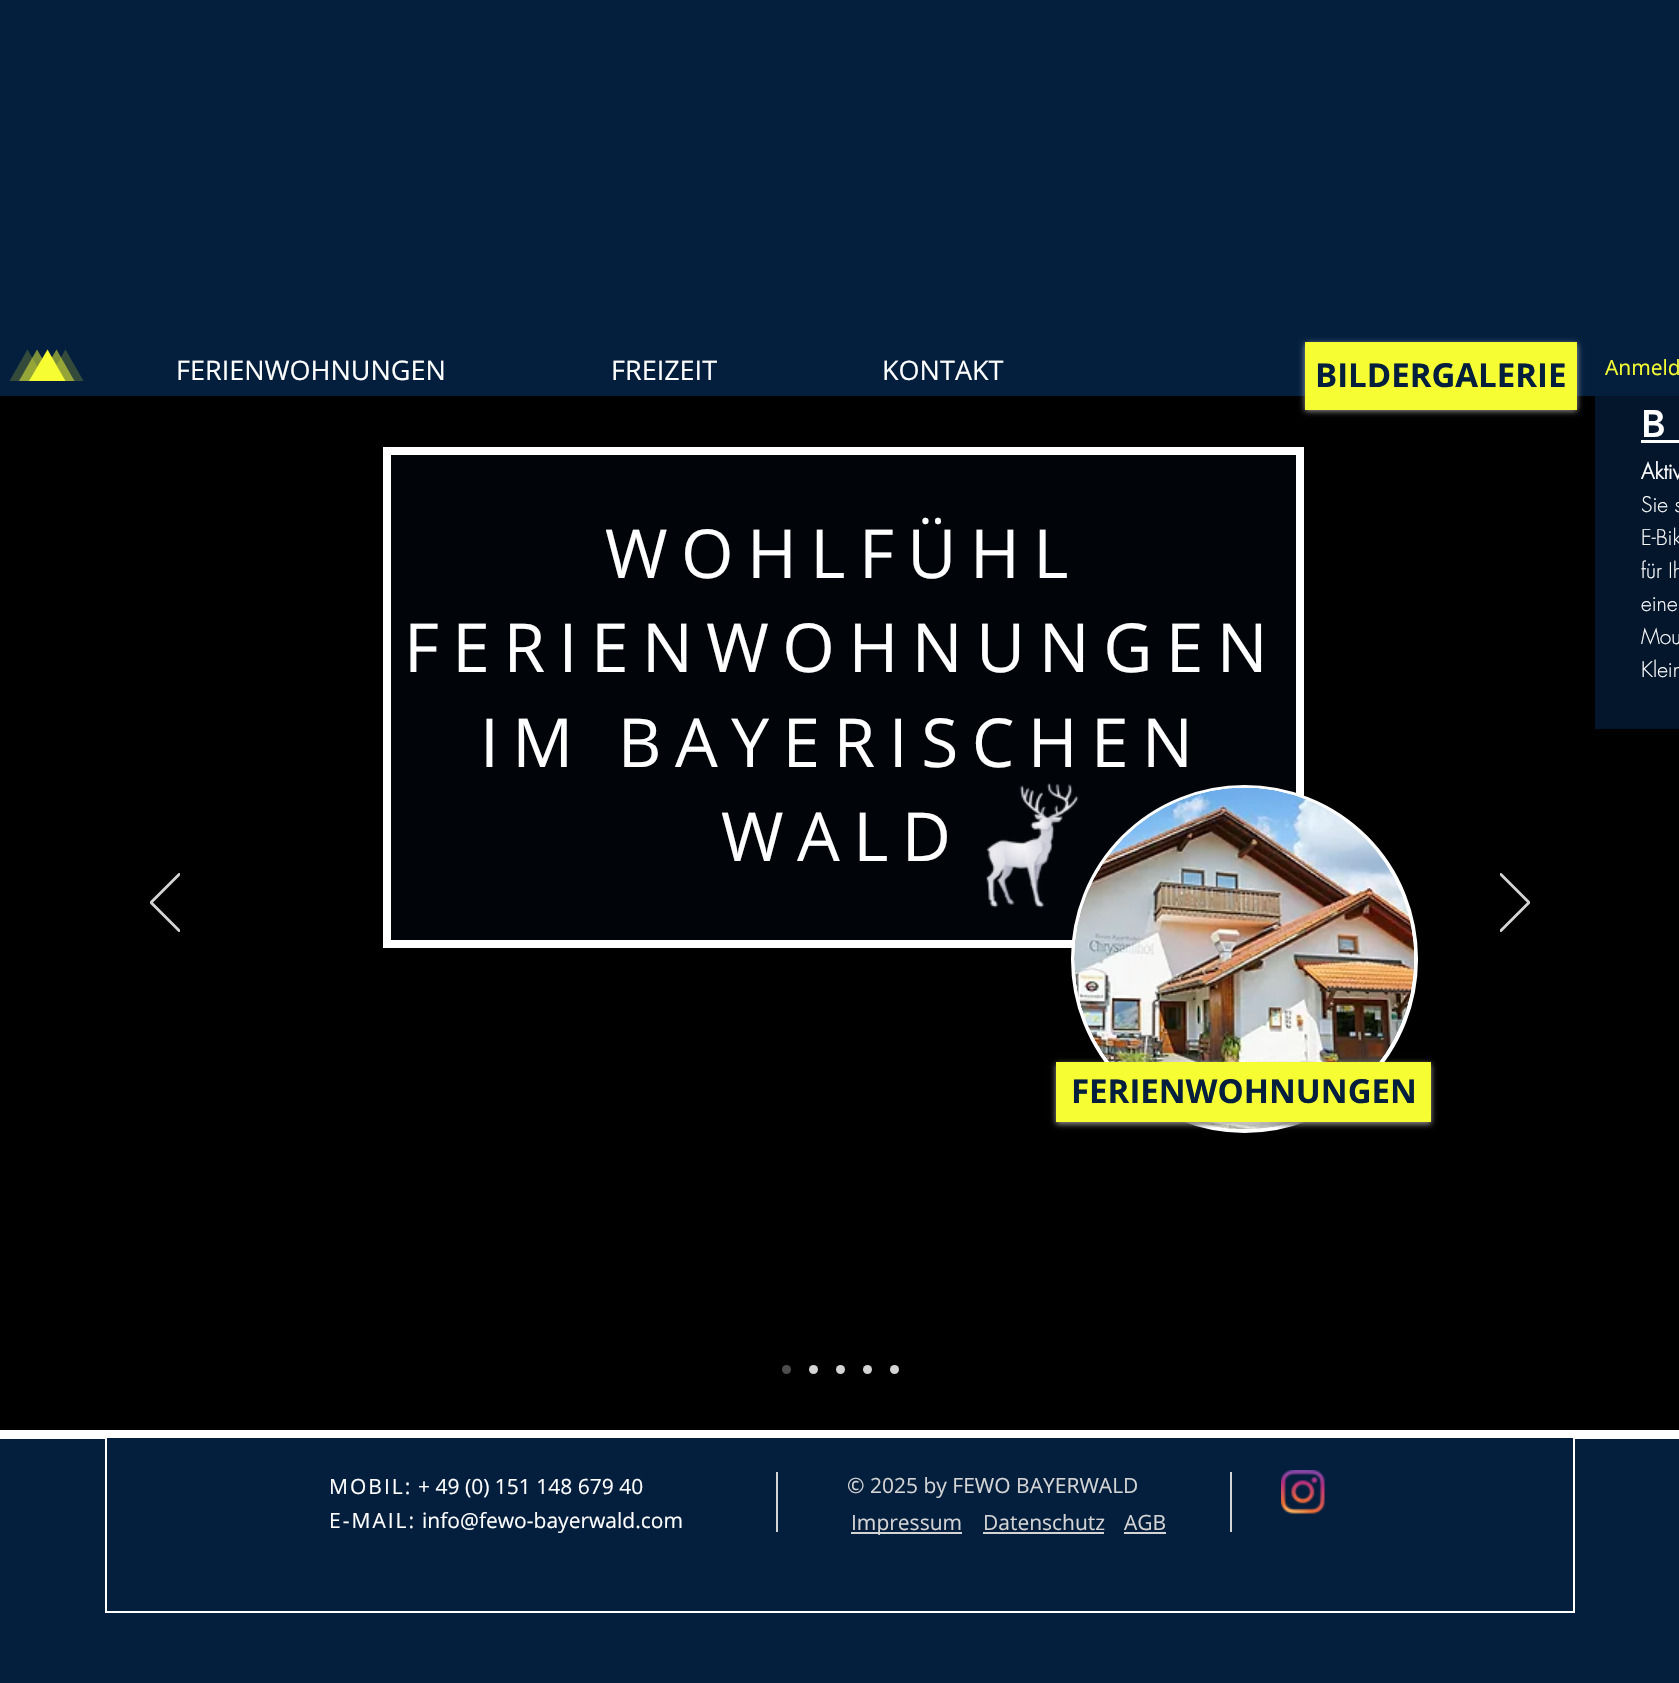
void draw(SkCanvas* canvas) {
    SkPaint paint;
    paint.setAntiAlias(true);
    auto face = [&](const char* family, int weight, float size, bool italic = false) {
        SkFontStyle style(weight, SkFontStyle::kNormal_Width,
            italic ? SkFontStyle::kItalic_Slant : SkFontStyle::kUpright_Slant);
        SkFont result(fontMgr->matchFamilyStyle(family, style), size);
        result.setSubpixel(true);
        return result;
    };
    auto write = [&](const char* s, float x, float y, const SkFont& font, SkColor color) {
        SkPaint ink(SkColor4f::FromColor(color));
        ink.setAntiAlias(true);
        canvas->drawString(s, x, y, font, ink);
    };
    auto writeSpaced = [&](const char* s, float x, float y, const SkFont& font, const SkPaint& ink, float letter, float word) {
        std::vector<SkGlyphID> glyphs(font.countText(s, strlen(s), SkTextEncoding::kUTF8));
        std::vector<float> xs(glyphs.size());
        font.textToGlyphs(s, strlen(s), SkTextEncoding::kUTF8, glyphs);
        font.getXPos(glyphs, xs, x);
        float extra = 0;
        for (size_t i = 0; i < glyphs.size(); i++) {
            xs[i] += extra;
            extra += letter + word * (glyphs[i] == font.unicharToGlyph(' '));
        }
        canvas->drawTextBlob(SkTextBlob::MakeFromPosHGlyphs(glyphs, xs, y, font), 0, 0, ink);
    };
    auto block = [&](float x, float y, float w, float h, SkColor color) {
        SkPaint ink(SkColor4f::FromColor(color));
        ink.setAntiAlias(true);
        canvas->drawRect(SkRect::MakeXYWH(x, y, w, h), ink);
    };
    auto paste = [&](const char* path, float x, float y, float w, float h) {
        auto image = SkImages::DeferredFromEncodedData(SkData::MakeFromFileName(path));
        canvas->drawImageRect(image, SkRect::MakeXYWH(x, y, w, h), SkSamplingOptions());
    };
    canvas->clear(SK_ColorWHITE);
    block(0, 0, 1679, 396, SkColorSetRGB(4, 31, 62));
    paint.setColor(SkColorSetRGB(52, 75, 60));
    canvas->drawPath(SkPathBuilder().moveTo(65.5f, 349.5f).lineTo(47.5f, 381).lineTo(83.5f, 381).close().detach(), paint);
    canvas->drawPath(SkPathBuilder().moveTo(27.5f, 349.5f).lineTo(9.5f, 381).lineTo(45.5f, 381).close().detach(), paint);
    paint.setColor(SkColorSetARGB(128, 246, 253, 51));
    canvas->drawPath(SkPathBuilder().moveTo(37, 349.5f).lineTo(19, 381).lineTo(55.5f, 381).close().detach(), paint);
    canvas->drawPath(SkPathBuilder().moveTo(56.5f, 349.5f).lineTo(38, 381).lineTo(74.5f, 381).close().detach(), paint);
    paint.setColor(SkColorSetRGB(246, 253, 51));
    canvas->drawPath(SkPathBuilder().moveTo(47.5f, 349.5f).lineTo(29, 381).lineTo(65.5f, 381).close().detach(), paint);
    auto kFont1 = face("Open Sans", 400, 27);
    write("FERIENWOHNUNGEN", 176, 380, kFont1, SK_ColorWHITE);
    write("FREIZEIT", 611, 380, kFont1, SK_ColorWHITE);
    write("KONTAKT", 882, 380, kFont1, SK_ColorWHITE);
    block(0, 396, 1679, 1034, SK_ColorBLACK);
    paint.setColor(SkColorSetARGB(153, 255, 255, 255));
    paint.setMaskFilter(SkMaskFilter::MakeBlur(kNormal_SkBlurStyle, 3));
    canvas->drawRect(SkRect::MakeXYWH(1305, 344, 272, 67), paint);
    paint.setMaskFilter(nullptr);
    block(1305, 342, 272, 68, SkColorSetRGB(246, 253, 51));
    auto kFont2 = face("Open Sans", 700, 33);
    write("BILDERGALERIE", 1315, 387, kFont2, SkColorSetRGB(4, 31, 62));
    auto kFont3 = face("Open Sans", 400, 21);
    write("Anmeld", 1605, 375, kFont3, SkColorSetRGB(246, 253, 51));
    canvas->save();
    canvas->clipRect(SkRect::MakeXYWH(150, 873, 30, 59));
    paint.setStyle(SkPaint::kStroke_Style);
    paint.setStrokeWidth(1.4f);
    paint.setColor(SkColorSetRGB(212, 212, 212));
    canvas->drawPath(SkPathBuilder().moveTo(179, 931.5f).lineTo(150, 902.5f).lineTo(179, 873.5f).lineTo(180, 874.5f).lineTo(152, 902.5f).lineTo(180, 930.5f).close().detach(), paint);
    canvas->restore();
    paint.setStyle(SkPaint::kFill_Style);
    paint.setColor(SkColorSetRGB(1, 4, 9));
    canvas->drawRect(SkRect::MakeXYWH(387, 451, 913, 493), paint);
    paint.setStyle(SkPaint::kStroke_Style);
    paint.setStrokeWidth(8);
    paint.setColor(SK_ColorWHITE);
    canvas->drawRect(SkRect::MakeXYWH(387, 451, 913, 493), paint);
    auto kFont4 = face("Open Sans", 400, 67.5f);
    paint.setStyle(SkPaint::kFill_Style);
    writeSpaced("WOHLFÜHL", 605, 578, kFont4, paint, 13.5f, 0);
    writeSpaced("FERIENWOHNUNGEN", 404, 672, kFont4, paint, 13.5f, 0);
    writeSpaced("IM BAYERISCHEN", 480, 767, kFont4, paint, 13.5f, 0);
    writeSpaced("WALD", 721, 861, kFont4, paint, 13.5f, 0);
    paste("pic1.png", 985, 783, 94, 125);
    canvas->drawRoundRect(SkRect::MakeXYWH(1072.5f, 786.5f, 344, 345), 172, 172, paint);
    paint.setStyle(SkPaint::kStroke_Style);
    paint.setStrokeWidth(3);
    canvas->drawRoundRect(SkRect::MakeXYWH(1072.5f, 786.5f, 344, 345), 172, 172, paint);
    paste("pic2.png", 1074, 787, 340, 342);
    paste("pic3.png", 1183, 1122, 90, 6);
    paste("pic4.png", 1222, 1122, 84, 7);
    paint.setStyle(SkPaint::kFill_Style);
    paint.setColor(SkColorSetARGB(153, 255, 255, 255));
    paint.setMaskFilter(SkMaskFilter::MakeBlur(kNormal_SkBlurStyle, 3));
    canvas->drawRect(SkRect::MakeXYWH(1056, 1064, 375, 60), paint);
    paint.setMaskFilter(nullptr);
    block(1056, 1062, 375, 60, SkColorSetRGB(246, 253, 51));
    write("FERIENWOHNUNGEN", 1071, 1103, kFont2, SkColorSetRGB(4, 31, 62));
    canvas->save();
    canvas->clipRect(SkRect::MakeXYWH(1500, 873, 30, 59));
    paint.setStyle(SkPaint::kStroke_Style);
    paint.setStrokeWidth(1.4f);
    paint.setColor(SkColorSetRGB(212, 212, 212));
    canvas->drawPath(SkPathBuilder().moveTo(1501, 931.5f).lineTo(1530, 902.5f).lineTo(1501, 873.5f).lineTo(1500, 874.5f).lineTo(1528, 902.5f).lineTo(1500, 930.5f).close().detach(), paint);
    canvas->restore();
    paint.setStyle(SkPaint::kFill_Style);
    paint.setColor(SkColorSetRGB(77, 77, 77));
    canvas->drawCircle(786.5f, 1369.5f, 4.5f, paint);
    paint.setColor(SkColorSetRGB(212, 212, 212));
    canvas->drawCircle(813.5f, 1369.5f, 4.5f, paint);
    canvas->drawCircle(840.5f, 1369.5f, 4.5f, paint);
    canvas->drawCircle(867.5f, 1369.5f, 4.5f, paint);
    canvas->drawCircle(894.5f, 1369.5f, 4.5f, paint);
    block(1595, 396, 84, 333, SkColorSetRGB(3, 22, 43));
    auto kFont5 = face("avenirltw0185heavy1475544", 900, 38);
    paint.setColor(SK_ColorWHITE);
    writeSpaced("B", 1641, 437, kFont5, paint, 9, 0);
    block(1641, 440, 38, 3, SK_ColorWHITE);
    auto kFont6 = face("futura", 700, 21);
    write("Aktiv", 1641, 479, kFont6, SK_ColorWHITE);
    auto kFont7 = face("futura", 300, 21);
    write("Sie s", 1641, 512, kFont7, SK_ColorWHITE);
    write("E-Bik", 1641, 545, kFont7, SK_ColorWHITE);
    write("für Ih", 1641, 578, kFont7, SK_ColorWHITE);
    write("eine", 1641, 611, kFont7, SK_ColorWHITE);
    write("Mou", 1641, 644, kFont7, SK_ColorWHITE);
    write("Klein", 1641, 677, kFont7, SK_ColorWHITE);
    block(0, 1439, 1679, 244, SkColorSetRGB(4, 31, 62));
    block(107, 1438, 1466, 1, SkColorSetRGB(4, 31, 62));
    paint.setStyle(SkPaint::kStroke_Style);
    paint.setStrokeWidth(2);
    canvas->drawRect(SkRect::MakeXYWH(106, 1437, 1468, 175), paint);
    paint.setStyle(SkPaint::kFill_Style);
    writeSpaced("MOBIL:", 329, 1494, kFont3, paint, 2, 0);
    write("+ 49 (0) 151 148 679 40", 418, 1494, kFont3, SK_ColorWHITE);
    writeSpaced("E-MAIL:", 329, 1528, kFont3, paint, 2, 0);
    write("info@fewo-bayerwald.com", 422, 1528, kFont3, SK_ColorWHITE);
    block(776, 1472, 2, 60, SkColorSetRGB(212, 212, 212));
    write("© 2025 by FEWO BAYERWALD", 847, 1493, kFont3, SkColorSetRGB(212, 212, 212));
    block(1230, 1472, 2, 60, SkColorSetRGB(212, 212, 212));
    paste("pic5.png", 1281, 1470, 44, 44);
    block(851, 1532, 111, 2, SkColorSetRGB(212, 212, 212));
    write("Impressum", 851, 1530, kFont3, SkColorSetRGB(212, 212, 212));
    write("Datenschutz", 983, 1530, kFont3, SkColorSetRGB(212, 212, 212));
    block(983, 1532, 121, 2, SkColorSetRGB(212, 212, 212));
    write("AGB", 1124, 1530, kFont3, SkColorSetRGB(212, 212, 212));
    block(1124, 1532, 42, 2, SkColorSetRGB(212, 212, 212));
}
